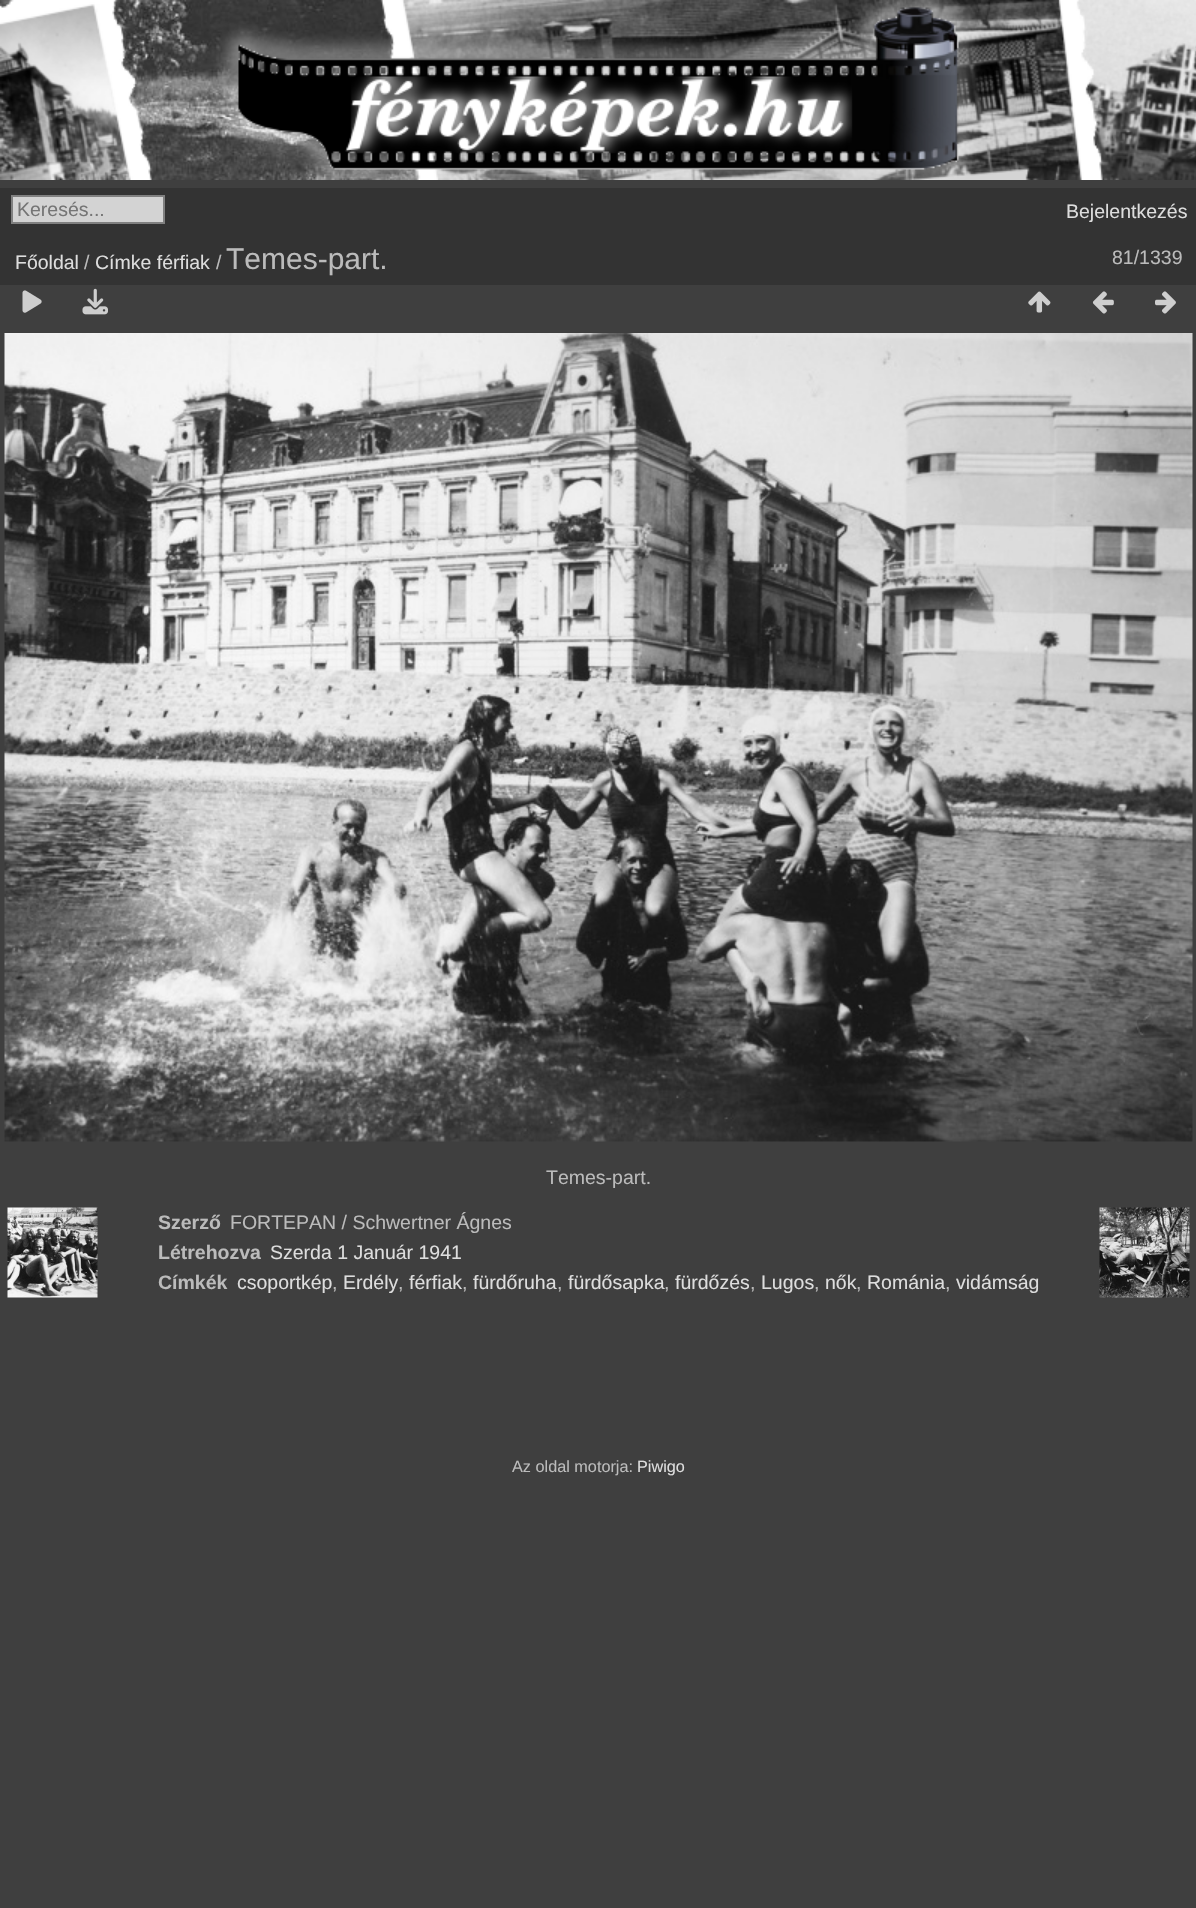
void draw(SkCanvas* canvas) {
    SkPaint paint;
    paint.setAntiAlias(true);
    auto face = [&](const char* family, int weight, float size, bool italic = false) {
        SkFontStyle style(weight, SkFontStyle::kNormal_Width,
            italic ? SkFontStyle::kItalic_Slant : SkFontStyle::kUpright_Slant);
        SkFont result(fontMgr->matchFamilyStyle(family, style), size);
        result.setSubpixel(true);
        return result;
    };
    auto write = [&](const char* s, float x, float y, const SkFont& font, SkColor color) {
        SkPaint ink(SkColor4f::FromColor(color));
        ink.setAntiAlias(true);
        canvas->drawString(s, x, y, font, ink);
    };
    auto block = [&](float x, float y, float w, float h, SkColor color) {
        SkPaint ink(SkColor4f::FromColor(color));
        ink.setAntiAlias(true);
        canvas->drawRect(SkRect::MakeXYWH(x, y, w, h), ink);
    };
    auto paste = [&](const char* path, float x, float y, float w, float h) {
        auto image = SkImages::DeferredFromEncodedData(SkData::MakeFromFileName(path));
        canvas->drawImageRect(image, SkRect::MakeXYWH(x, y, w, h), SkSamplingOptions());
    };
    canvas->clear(SkColorSetRGB(63, 63, 63));
    block(899, 166, 135, 14, SkColorSetRGB(212, 212, 212));
    paste("pic1.png", 0, 0, 1196, 180);
    block(0, 188, 1196, 97, SkColorSetRGB(51, 51, 51));
    paint.setColor(SkColorSetRGB(211, 211, 211));
    canvas->drawRect(SkRect::MakeXYWH(12, 196, 152, 27), paint);
    paint.setStyle(SkPaint::kStroke_Style);
    paint.setStrokeWidth(2);
    paint.setColor(SkColorSetRGB(128, 128, 128));
    canvas->drawRect(SkRect::MakeXYWH(12, 196, 152, 27), paint);
    auto kFont1 = face("Liberation Sans", 400, 19.5f);
    write("Keresés...", 17, 216, kFont1, SkColorSetRGB(117, 117, 117));
    write("Bejelentkezés", 1066, 218, kFont1, SkColorSetRGB(221, 221, 221));
    write("Főoldal", 15, 269, kFont1, SkColorSetRGB(221, 221, 221));
    write("/", 84, 269, kFont1, SkColorSetRGB(187, 187, 187));
    write("Címke férfiak", 95, 269, kFont1, SkColorSetRGB(221, 221, 221));
    write("/", 216, 269, kFont1, SkColorSetRGB(187, 187, 187));
    auto kFont2 = face("Liberation Sans", 400, 30);
    write("Temes-part.", 226, 269, kFont2, SkColorSetRGB(187, 187, 187));
    write("81/1339", 1112, 264, kFont1, SkColorSetRGB(187, 187, 187));
    paste("pic2.png", 22, 290, 20, 23);
    paste("pic3.png", 82, 288, 26, 27);
    paste("pic4.png", 1028, 291, 23, 22);
    paste("pic5.png", 1092, 291, 22, 23);
    paste("pic6.png", 1155, 291, 21, 23);
    paste("pic7.png", 4, 333, 1189, 809);
    write("Temes-part.", 546, 1184, kFont1, SkColorSetRGB(187, 187, 187));
    paste("pic8.png", 7, 1207, 91, 91);
    paste("pic9.png", 1099, 1207, 91, 91);
    auto kFont3 = face("Liberation Sans", 700, 19.5f);
    write("Szerző", 158, 1229, kFont3, SkColorSetRGB(187, 187, 187));
    write("FORTEPAN / Schwertner Ágnes", 230, 1229, kFont1, SkColorSetRGB(187, 187, 187));
    write("Létrehozva", 158, 1259, kFont3, SkColorSetRGB(187, 187, 187));
    write("Szerda 1 Január 1941", 270, 1259, kFont1, SkColorSetRGB(221, 221, 221));
    write("Címkék", 158, 1289, kFont3, SkColorSetRGB(187, 187, 187));
    write("csoportkép", 237, 1289, kFont1, SkColorSetRGB(221, 221, 221));
    write(",", 332, 1289, kFont1, SkColorSetRGB(187, 187, 187));
    write("Erdély", 343, 1289, kFont1, SkColorSetRGB(221, 221, 221));
    write(",", 398, 1289, kFont1, SkColorSetRGB(187, 187, 187));
    write("férfiak", 409, 1289, kFont1, SkColorSetRGB(221, 221, 221));
    write(",", 462, 1289, kFont1, SkColorSetRGB(187, 187, 187));
    write("fürdőruha", 473, 1289, kFont1, SkColorSetRGB(221, 221, 221));
    write(",", 557, 1289, kFont1, SkColorSetRGB(187, 187, 187));
    write("fürdősapka", 568, 1289, kFont1, SkColorSetRGB(221, 221, 221));
    write(",", 664, 1289, kFont1, SkColorSetRGB(187, 187, 187));
    write("fürdőzés", 675, 1289, kFont1, SkColorSetRGB(221, 221, 221));
    write(",", 750, 1289, kFont1, SkColorSetRGB(187, 187, 187));
    write("Lugos", 761, 1289, kFont1, SkColorSetRGB(221, 221, 221));
    write(",", 814, 1289, kFont1, SkColorSetRGB(187, 187, 187));
    write("nők", 825, 1289, kFont1, SkColorSetRGB(221, 221, 221));
    write(",", 856, 1289, kFont1, SkColorSetRGB(187, 187, 187));
    write("Románia", 867, 1289, kFont1, SkColorSetRGB(221, 221, 221));
    write(",", 945, 1289, kFont1, SkColorSetRGB(187, 187, 187));
    write("vidámság", 956, 1289, kFont1, SkColorSetRGB(221, 221, 221));
    auto kFont4 = face("Liberation Sans", 400, 16.25f);
    write("Az oldal motorja:", 512, 1472, kFont4, SkColorSetRGB(187, 187, 187));
    write("Piwigo", 637, 1472, kFont4, SkColorSetRGB(221, 221, 221));
}
